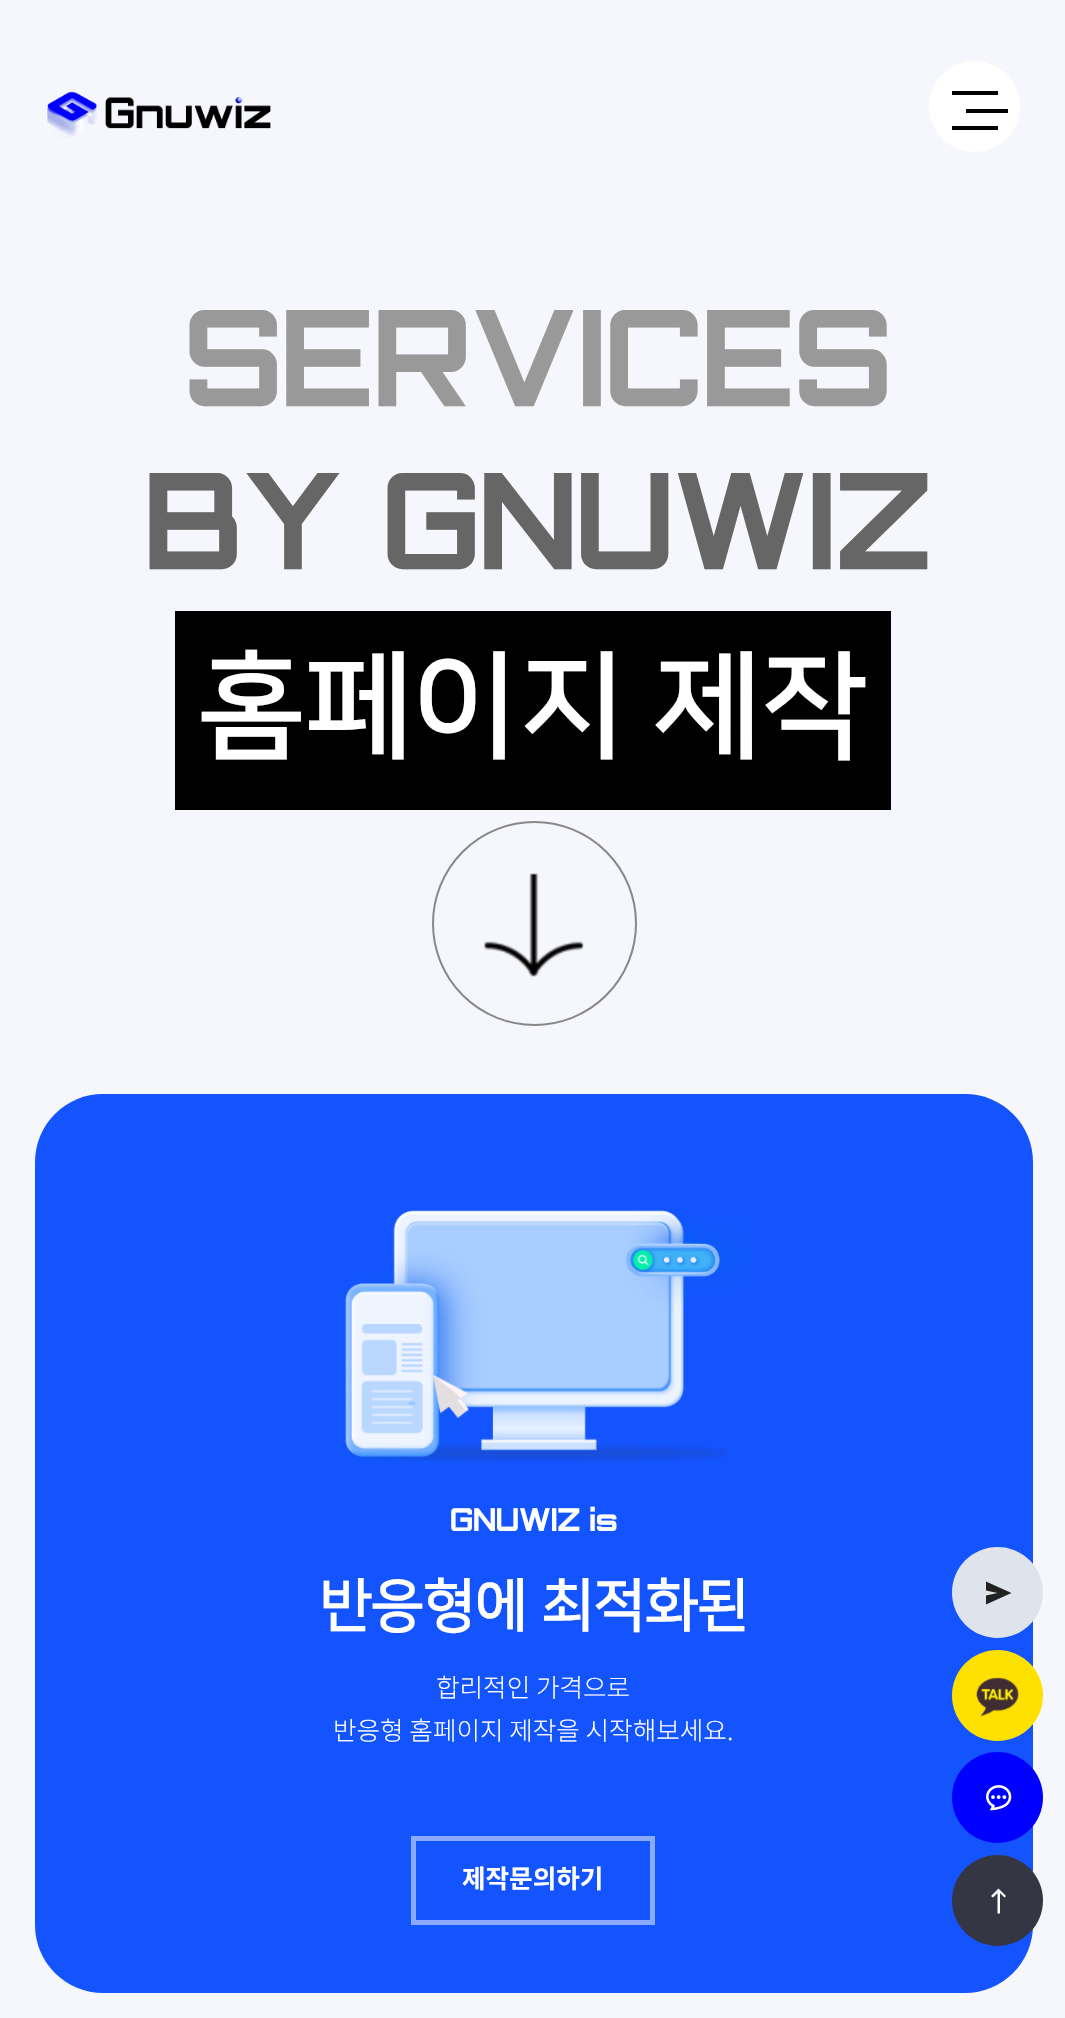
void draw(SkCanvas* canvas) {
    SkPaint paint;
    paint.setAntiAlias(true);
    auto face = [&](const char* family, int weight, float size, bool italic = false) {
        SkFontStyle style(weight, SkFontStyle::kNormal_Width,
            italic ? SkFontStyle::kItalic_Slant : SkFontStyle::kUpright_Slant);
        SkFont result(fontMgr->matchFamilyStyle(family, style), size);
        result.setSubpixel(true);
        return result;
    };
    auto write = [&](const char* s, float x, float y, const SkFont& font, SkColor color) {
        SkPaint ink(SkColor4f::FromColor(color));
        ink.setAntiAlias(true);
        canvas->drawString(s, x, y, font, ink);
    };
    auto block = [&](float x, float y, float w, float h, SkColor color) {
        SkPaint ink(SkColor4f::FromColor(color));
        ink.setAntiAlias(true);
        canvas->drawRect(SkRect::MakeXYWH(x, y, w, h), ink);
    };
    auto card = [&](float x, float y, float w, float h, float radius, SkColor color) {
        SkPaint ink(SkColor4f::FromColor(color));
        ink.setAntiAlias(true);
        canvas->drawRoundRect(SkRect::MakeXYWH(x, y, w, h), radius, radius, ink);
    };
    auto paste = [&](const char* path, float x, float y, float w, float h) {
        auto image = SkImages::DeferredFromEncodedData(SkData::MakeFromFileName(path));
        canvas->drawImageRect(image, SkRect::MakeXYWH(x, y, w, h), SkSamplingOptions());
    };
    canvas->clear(SkColorSetRGB(246, 247, 252));
    paste("pic1.png", 47, 91, 224, 47);
    paint.setColor(SK_ColorWHITE);
    canvas->drawCircle(974.5f, 106.5f, 45.5f, paint);
    block(952, 91, 46, 4, SK_ColorBLACK);
    block(966, 109, 42, 4, SK_ColorBLACK);
    block(952, 126, 46, 4, SK_ColorBLACK);
    auto kFont1 = face("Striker", 400, 96);
    write("SERVICES", 180, 406, kFont1, SkColorSetRGB(153, 153, 153));
    write("BY GNUWIZ", 140, 569, kFont1, SkColorSetRGB(102, 102, 102));
    block(175, 611, 716, 199, SK_ColorBLACK);
    auto kFont2 = face("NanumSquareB", 700, 117.25f);
    write("홈페이지 제작", 198, 743, kFont2, SK_ColorWHITE);
    paint.setStyle(SkPaint::kStroke_Style);
    paint.setStrokeWidth(2);
    paint.setColor(SkColorSetRGB(136, 136, 136));
    canvas->drawCircle(534.5f, 923.5f, 101.5f, paint);
    paste("pic2.png", 484, 873, 100, 104);
    card(35, 1094, 998, 899, 68, SkColorSetRGB(20, 84, 255));
    paste("pic3.png", 345, 1210, 406, 254);
    auto kFont3 = face("Striker", 400, 22.75f);
    write("GNUWIZ is", 449, 1531, kFont3, SK_ColorWHITE);
    auto kFont4 = face("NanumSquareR", 700, 57);
    write("반응형에 최적화된", 319, 1624, kFont4, SK_ColorWHITE);
    auto kFont5 = face("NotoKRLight", 300, 25.6f);
    write("합리적인 가격으로", 436, 1697, kFont5, SK_ColorWHITE);
    write("반응형 홈페이지 제작을 시작해보세요.", 333, 1740, kFont5, SK_ColorWHITE);
    paint.setStrokeWidth(5);
    paint.setColor(SkColorSetRGB(138, 170, 255));
    canvas->drawRect(SkRect::MakeXYWH(413.5f, 1838.5f, 239, 84), paint);
    auto kFont6 = face("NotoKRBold", 700, 25.6f);
    write("제작문의하기", 462, 1888, kFont6, SK_ColorWHITE);
    paint.setStyle(SkPaint::kFill_Style);
    paint.setColor(SkColorSetRGB(223, 227, 235));
    canvas->drawCircle(997.5f, 1592.5f, 45.5f, paint);
    paint.setColor(SkColorSetRGB(34, 34, 34));
    canvas->drawPath(SkPathBuilder().moveTo(986, 1581.5f).lineTo(986, 1590.5f).lineTo(997.5f, 1593).lineTo(986, 1595.5f).lineTo(986, 1604.5f).lineTo(1011.5f, 1593).close().detach(), paint);
    paint.setColor(SkColorSetRGB(255, 225, 0));
    canvas->drawCircle(997.5f, 1695.5f, 45.5f, paint);
    paste("pic4.png", 976, 1677, 43, 40);
    paint.setColor(SkColorSetRGB(0, 0, 255));
    canvas->drawCircle(997.5f, 1797.5f, 45.5f, paint);
    paste("pic5.png", 986, 1785, 26, 26);
    paint.setColor(SkColorSetRGB(52, 54, 68));
    canvas->drawCircle(997.5f, 1900.5f, 45.5f, paint);
    paint.setColor(SK_ColorWHITE);
    canvas->drawPath(SkPathBuilder().moveTo(1006, 1896).lineTo(998.5f, 1888.5f).lineTo(991, 1896).lineTo(993, 1897.5f).lineTo(997.5f, 1893).lineTo(997.5f, 1913.5f).lineTo(1000, 1913.5f).lineTo(1000, 1893).lineTo(1004.5f, 1897.5f).close().detach(), paint);
}
